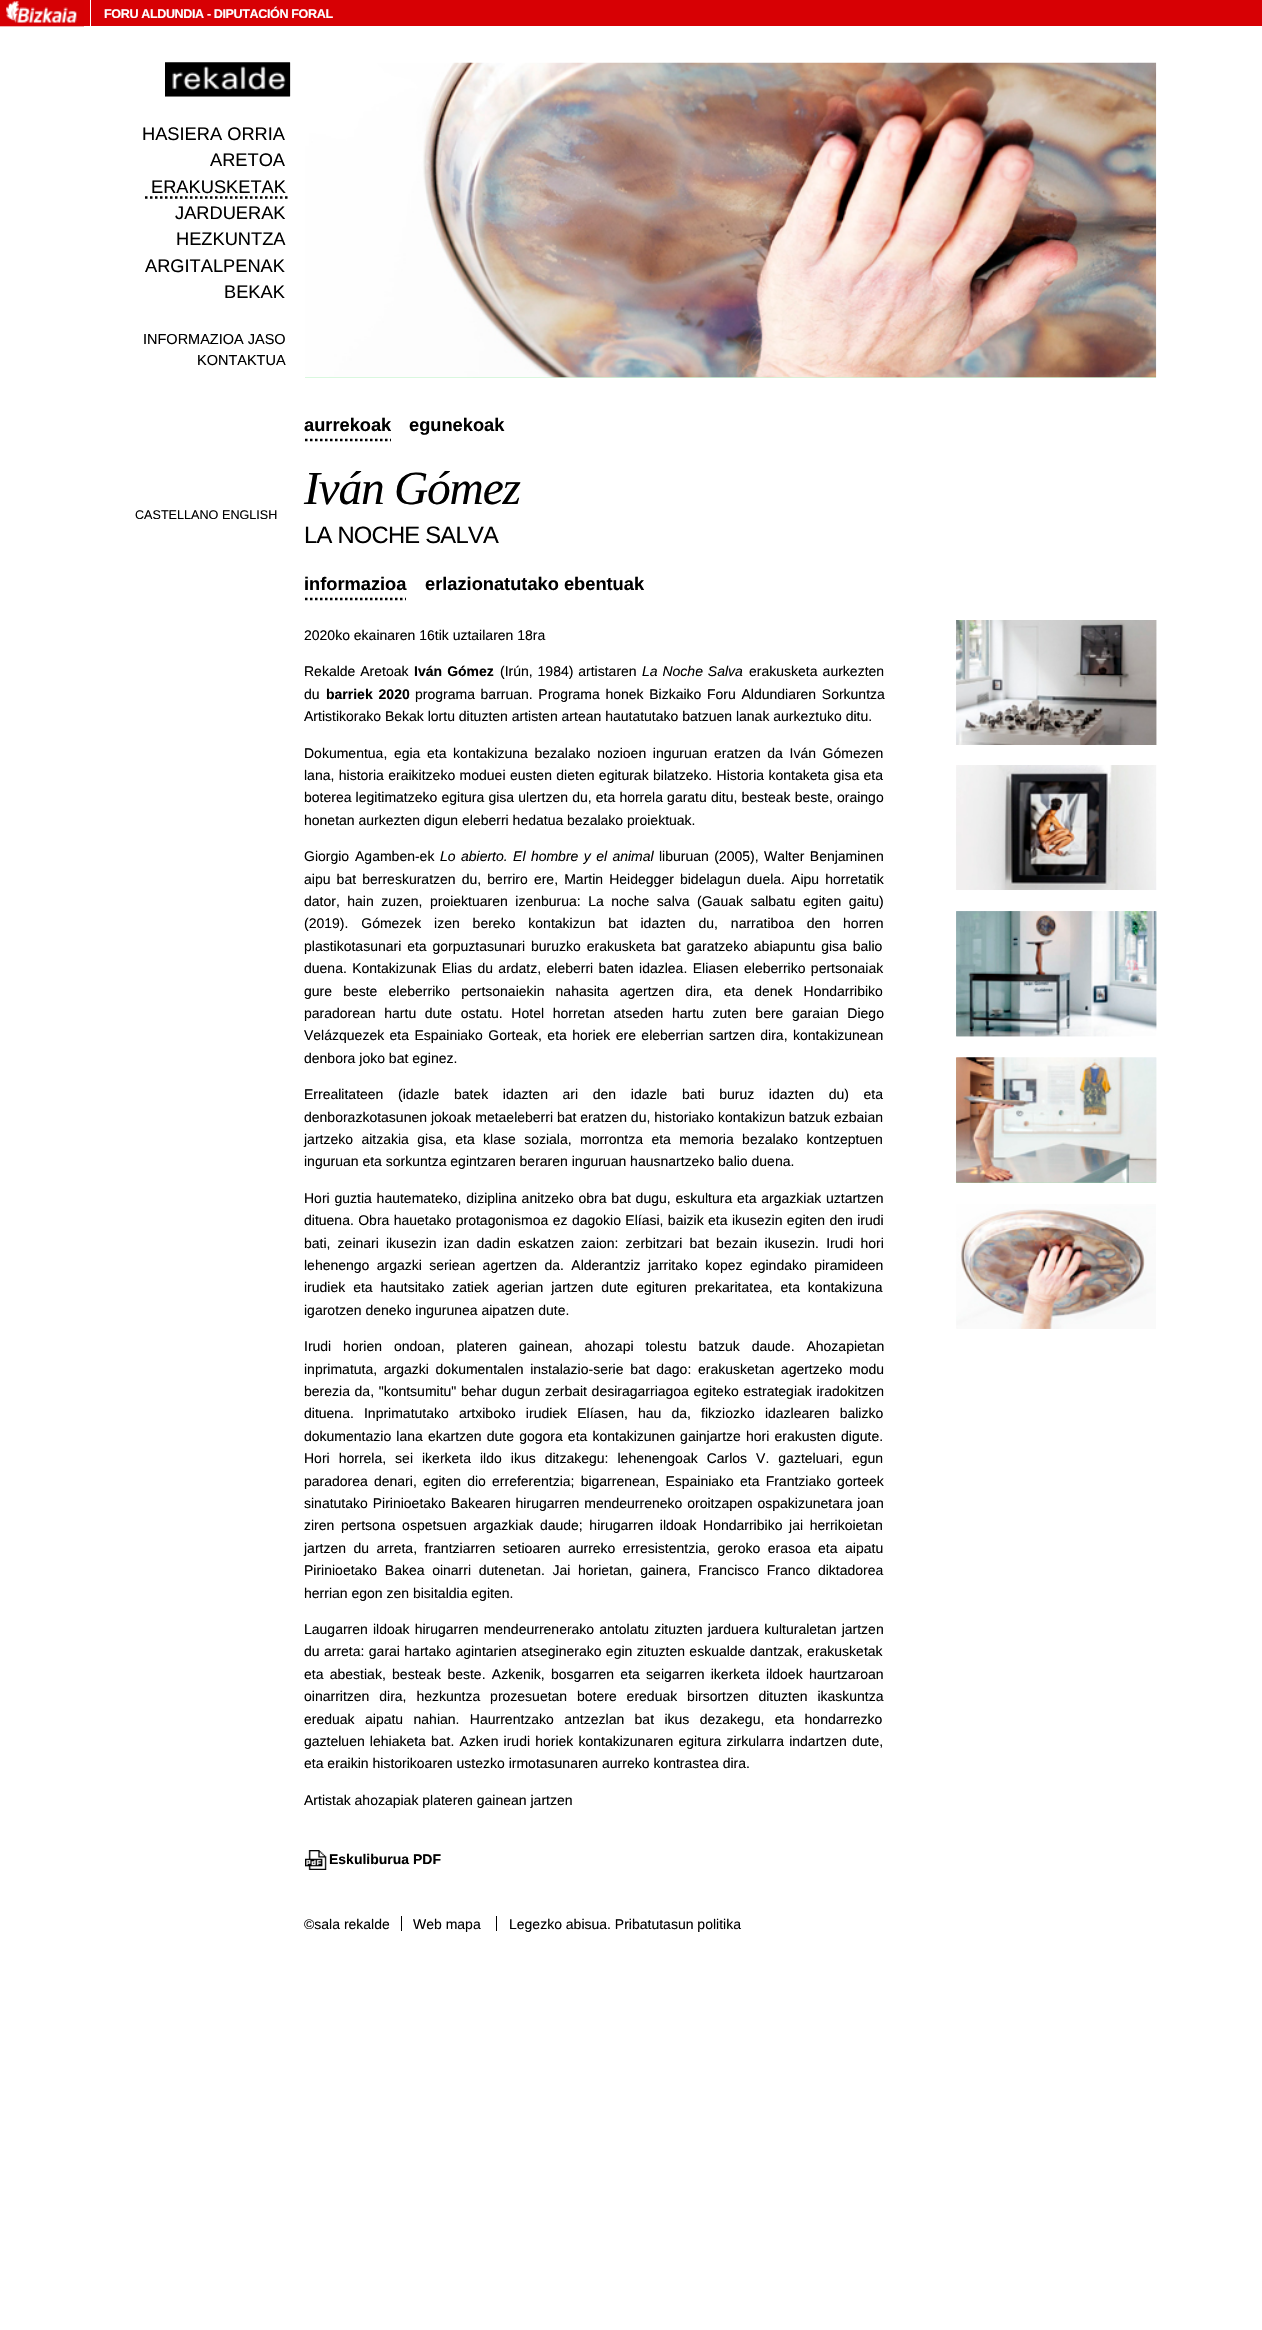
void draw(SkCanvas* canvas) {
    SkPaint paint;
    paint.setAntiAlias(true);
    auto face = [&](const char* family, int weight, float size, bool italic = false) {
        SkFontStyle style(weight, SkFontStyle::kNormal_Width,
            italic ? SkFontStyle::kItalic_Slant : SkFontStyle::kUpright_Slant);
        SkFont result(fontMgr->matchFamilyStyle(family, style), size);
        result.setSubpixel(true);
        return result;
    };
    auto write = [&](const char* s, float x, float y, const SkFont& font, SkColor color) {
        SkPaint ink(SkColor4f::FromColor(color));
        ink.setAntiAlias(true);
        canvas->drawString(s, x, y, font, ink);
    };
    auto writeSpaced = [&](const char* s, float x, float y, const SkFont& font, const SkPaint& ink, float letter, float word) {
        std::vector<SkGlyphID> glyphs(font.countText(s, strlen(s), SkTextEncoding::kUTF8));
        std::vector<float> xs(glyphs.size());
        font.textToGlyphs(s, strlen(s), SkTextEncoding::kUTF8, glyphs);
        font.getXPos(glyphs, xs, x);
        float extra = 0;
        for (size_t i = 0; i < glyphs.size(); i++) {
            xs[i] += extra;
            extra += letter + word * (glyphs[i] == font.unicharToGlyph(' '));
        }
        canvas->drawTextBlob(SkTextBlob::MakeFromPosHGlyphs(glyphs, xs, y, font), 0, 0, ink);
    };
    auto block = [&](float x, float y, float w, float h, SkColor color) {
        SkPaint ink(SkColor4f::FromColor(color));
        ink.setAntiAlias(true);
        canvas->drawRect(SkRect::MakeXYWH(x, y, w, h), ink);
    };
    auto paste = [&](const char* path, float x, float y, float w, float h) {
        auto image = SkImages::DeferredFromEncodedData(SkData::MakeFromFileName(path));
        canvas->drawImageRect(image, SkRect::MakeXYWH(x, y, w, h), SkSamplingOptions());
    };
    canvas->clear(SK_ColorWHITE);
    block(84, 0, 1178, 26, SkColorSetRGB(215, 0, 4));
    paste("pic1.png", 0, 0, 84, 27);
    block(90, 0, 1, 30, SK_ColorWHITE);
    auto kFont1 = face("Liberation Sans", 700, 12.6f);
    paint.setColor(SK_ColorWHITE);
    writeSpaced("FORU ALDUNDIA - DIPUTACIÓN FORAL", 104, 18, kFont1, paint, -0.4f, 0);
    paste("pic2.png", 165, 62, 125, 35);
    paste("pic3.png", 165, 62, 126, 35);
    auto kFont2 = face("Liberation Sans", 400, 18.25f);
    write("HASIERA ORRIA", 142, 140, kFont2, SK_ColorBLACK);
    write("ARETOA", 210, 166, kFont2, SK_ColorBLACK);
    write("ERAKUSKETAK", 151, 193, kFont2, SK_ColorBLACK);
    paint.setStyle(SkPaint::kStroke_Style);
    paint.setStrokeWidth(2.5f);
    paint.setColor(SK_ColorBLACK);
    paint.setPathEffect(SkDashPathEffect::Make({{2.5f, 2.5f}}, 0));
    canvas->drawPath(SkPathBuilder().moveTo(145, 197.5f).lineTo(290, 197.5f).detach(), paint);
    paint.setPathEffect(nullptr);
    write("JARDUERAK", 175, 219, kFont2, SK_ColorBLACK);
    write("HEZKUNTZA", 176, 245, kFont2, SK_ColorBLACK);
    write("ARGITALPENAK", 145, 272, kFont2, SK_ColorBLACK);
    write("BEKAK", 224, 298, kFont2, SK_ColorBLACK);
    auto kFont3 = face("Liberation Sans", 400, 14.5f);
    write("INFORMAZIOA JASO", 143, 344, kFont3, SK_ColorBLACK);
    write("KONTAKTUA", 197, 365, kFont3, SK_ColorBLACK);
    auto kFont4 = face("Liberation Sans", 400, 12.6f);
    write("CASTELLANO", 135, 519, kFont4, SK_ColorBLACK);
    write("ENGLISH", 222, 519, kFont4, SK_ColorBLACK);
    block(305, 377, 851, 1, SkColorSetRGB(153, 238, 170));
    paste("pic4.png", 305, 377, 851, 1);
    paste("pic5.png", 305, 62, 852, 316);
    auto kFont5 = face("Liberation Sans", 700, 18.25f);
    write("aurrekoak", 304, 431, kFont5, SK_ColorBLACK);
    paint.setPathEffect(SkDashPathEffect::Make({{2.5f, 2.5f}}, 0));
    canvas->drawPath(SkPathBuilder().moveTo(305, 440).lineTo(391, 440).detach(), paint);
    paint.setPathEffect(nullptr);
    write("egunekoak", 409, 431, kFont5, SK_ColorBLACK);
    auto kFont6 = face("Liberation Serif", 400, 47.5f, true);
    paint.setStyle(SkPaint::kFill_Style);
    writeSpaced("Iván Gómez", 304, 504, kFont6, paint, -1.25f, 0);
    auto kFont7 = face("Liberation Sans", 400, 23.75f);
    writeSpaced("LA NOCHE SALVA", 304, 543, kFont7, paint, -0.75f, 0);
    write("informazioa", 304, 590, kFont5, SK_ColorBLACK);
    paint.setStyle(SkPaint::kStroke_Style);
    paint.setPathEffect(SkDashPathEffect::Make({{2.5f, 2.5f}}, 0));
    canvas->drawPath(SkPathBuilder().moveTo(305, 599).lineTo(406, 599).detach(), paint);
    paint.setPathEffect(nullptr);
    write("erlazionatutako ebentuak", 425, 590, kFont5, SK_ColorBLACK);
    auto kFont8 = face("Liberation Sans", 400, 14);
    write("2020ko ekainaren 16tik uztailaren 18ra", 304, 640, kFont8, SK_ColorBLACK);
    paint.setStyle(SkPaint::kFill_Style);
    writeSpaced("Rekalde Aretoak", 304, 676, kFont8, paint, 0, 1);
    auto kFont9 = face("Liberation Sans", 700, 14);
    writeSpaced("Iván Gómez", 414, 676, kFont9, paint, 0, 1.25f);
    writeSpaced("(Irún, 1984) artistaren", 500, 676, kFont8, paint, 0, 1);
    auto kFont10 = face("Liberation Sans", 400, 14, true);
    writeSpaced("La Noche Salva", 642, 676, kFont10, paint, 0, 1);
    writeSpaced("erakusketa aurkezten", 749, 676, kFont8, paint, 0, 1.25f);
    write("du", 304, 699, kFont8, SK_ColorBLACK);
    writeSpaced("barriek 2020", 326, 699, kFont9, paint, 0, 2);
    writeSpaced("programa barruan. Programa honek Bizkaiko Foru Aldundiaren Sorkuntza", 415, 699, kFont8, paint, 0, 1.75f);
    write("Artistikorako Bekak lortu dituzten artisten artean hautatutako batzuen lanak aurkeztuko ditu.", 304, 721, kFont8, SK_ColorBLACK);
    writeSpaced("Dokumentua, egia eta kontakizuna bezalako nozioen inguruan eratzen da Iván Gómezen", 304, 758, kFont8, paint, 0, 2.75f);
    writeSpaced("lana, historia eraikitzeko moduei eusten dieten egiturak bilatzeko. Historia kontaketa gisa eta", 304, 780, kFont8, paint, 0, 0.5f);
    writeSpaced("boterea legitimatzeko egitura gisa ulertzen du, eta horrela garatu ditu, besteak beste, oraingo", 304, 802, kFont8, paint, 0, 0.25f);
    write("honetan aurkezten digun eleberri hedatua bezalako proiektuak.", 304, 825, kFont8, SK_ColorBLACK);
    writeSpaced("Giorgio Agamben-ek", 304, 861, kFont8, paint, 0, 2);
    writeSpaced("Lo abierto. El hombre y el animal", 440, 861, kFont10, paint, 0, 1.5f);
    writeSpaced("liburuan (2005), Walter Benjaminen", 659, 861, kFont8, paint, 0, 1.5f);
    writeSpaced("aipu bat berreskuratzen du, berriro ere, Martin Heidegger bidelagun duela. Aipu horretatik", 304, 884, kFont8, paint, 0, 2.25f);
    writeSpaced("dator, hain zuzen, proiektuaren izenburua: La noche salva (Gauak salbatu egiten gaitu)", 304, 906, kFont8, paint, 0, 3.6f);
    writeSpaced("(2019). Gómezek izen bereko kontakizun bat idazten du, narratiboa den horren", 304, 928, kFont8, paint, 0, 9);
    writeSpaced("plastikotasunari eta gorpuztasunari buruzko erakusketa bat garatzeko abiapuntu gisa balio", 304, 951, kFont8, paint, 0, 2);
    writeSpaced("duena. Kontakizunak Elias du ardatz, eleberri baten idazlea. Eliasen eleberriko pertsonaiak", 304, 973, kFont8, paint, 0, 1.5f);
    writeSpaced("gure beste eleberriko pertsonaiekin nahasita agertzen dira, eta denek Hondarribiko", 304, 996, kFont8, paint, 0, 7.25f);
    writeSpaced("paradorean hartu dute ostatu. Hotel horretan atseden hartu zuten bere garaian Diego", 304, 1018, kFont8, paint, 0, 4.75f);
    writeSpaced("Velázquezek eta Espainiako Gorteak, eta horiek ere eleberrian sartzen dira, kontakizunean", 304, 1040, kFont8, paint, 0, 1.5f);
    write("denbora joko bat eginez.", 304, 1063, kFont8, SK_ColorBLACK);
    writeSpaced("Errealitateen (idazle batek idazten ari den idazle bati buruz idazten du) eta", 304, 1099, kFont8, paint, 0, 10.75f);
    write("denborazkotasunen jokoak metaeleberri bat eratzen du, historiako kontakizun batzuk ezbaian", 304, 1122, kFont8, SK_ColorBLACK);
    writeSpaced("jartzeko aitzakia gisa, eta klase soziala, morrontza eta memoria bezalako kontzeptuen", 304, 1144, kFont8, paint, 0, 4.5f);
    write("inguruan eta sorkuntza egintzaren beraren inguruan hausnartzeko balio duena.", 304, 1166, kFont8, SK_ColorBLACK);
    writeSpaced("Hori guztia hautemateko, diziplina anitzeko obra bat dugu, eskultura eta argazkiak uztartzen", 304, 1203, kFont8, paint, 0, 0.9f);
    writeSpaced("dituena. Obra hauetako protagonismoa ez dagokio Elíasi, baizik eta ikusezin egiten den irudi", 304, 1225, kFont8, paint, 0, 0.5f);
    writeSpaced("bati, zeinari ikusezin izan dadin eskatzen zaion: zerbitzari bat bezain ikusezin. Irudi hori", 304, 1248, kFont8, paint, 0, 3.25f);
    writeSpaced("lehenengo argazki seriean agertzen da. Alderantziz jarritako kopez egindako piramideen", 304, 1270, kFont8, paint, 0, 3.5f);
    writeSpaced("irudiek eta hautsitako zatiek agerian jartzen dute egituren prekaritatea, eta kontakizuna", 304, 1292, kFont8, paint, 0, 4);
    write("igarotzen deneko ingurunea aipatzen dute.", 304, 1315, kFont8, SK_ColorBLACK);
    writeSpaced("Irudi horien ondoan, plateren gainean, ahozapi tolestu batzuk daude. Ahozapietan", 304, 1351, kFont8, paint, 0, 8);
    writeSpaced("inprimatuta, argazki dokumentalen instalazio-serie bat dago: erakusketan agertzeko modu", 304, 1374, kFont8, paint, 0, 2.75f);
    writeSpaced("berezia da, \"kontsumitu\" behar dugun zerbait desiragarriagoa egiteko estrategiak iradokitzen", 304, 1396, kFont8, paint, 0, 0.75f);
    writeSpaced("dituena. Inprimatutako artxiboko irudiek Elíasen, hau da, fikziozko idazlearen balizko", 304, 1418, kFont8, paint, 0, 6.25f);
    writeSpaced("dokumentazio lana ekartzen dute gogora eta kontakizunen gainjartze hori erakusten digute.", 304, 1441, kFont8, paint, 0, 1.25f);
    writeSpaced("Hori horrela, sei ikerketa ildo ikus ditzakegu: lehenengoak Carlos V. gazteluari, egun", 304, 1463, kFont8, paint, 0, 5.1f);
    writeSpaced("paradorea denari, egiten dio erreferentzia; bigarrenean, Espainiako eta Frantziako gorteek", 304, 1486, kFont8, paint, 0, 2.25f);
    writeSpaced("sinatutako Pirinioetako Bakearen hirugarren mendeurreneko oroitzapen ospakizunetara joan", 304, 1508, kFont8, paint, 0, 1);
    writeSpaced("ziren pertsona ospetsuen argazkiak daude; hirugarren ildoak Hondarribiko jai herrikoietan", 304, 1530, kFont8, paint, 0, 2.75f);
    writeSpaced("jartzen du arreta, frantziarren setioaren aurreko erresistentzia, geroko erasoa eta aipatu", 304, 1553, kFont8, paint, 0, 3.6f);
    writeSpaced("Pirinioetako Bakea oinarri dutenetan. Jai horietan, gainera, Francisco Franco diktadorea", 304, 1575, kFont8, paint, 0, 3.75f);
    write("herrian egon zen bisitaldia egiten.", 304, 1598, kFont8, SK_ColorBLACK);
    writeSpaced("Laugarren ildoak hirugarren mendeurrenerako antolatu zituzten jarduera kulturaletan jartzen", 304, 1634, kFont8, paint, 0, 1.25f);
    writeSpaced("du arreta: garai hartako agintarien atseginerako egin zituzten eskualde dantzak, erakusketak", 304, 1656, kFont8, paint, 0, 0.5f);
    writeSpaced("eta abestiak, besteak beste. Azkenik, bosgarren eta seigarren ikerketa ildoek haurtzaroan", 304, 1679, kFont8, paint, 0, 2.4f);
    writeSpaced("oinarritzen dira, hezkuntza prozesuetan botere ereduak birsortzen dituzten ikaskuntza", 304, 1701, kFont8, paint, 0, 6);
    writeSpaced("ereduak aipatu nahian. Haurrentzako antzezlan bat ikus dezakegu, eta hondarrezko", 304, 1724, kFont8, paint, 0, 6.5f);
    writeSpaced("gazteluen lehiaketa bat. Azken irudi horiek kontakizunaren egitura zirkularra indartzen dute,", 304, 1746, kFont8, paint, 0, 1.25f);
    write("eta eraikin historikoaren ustezko irmotasunaren aurreko kontrastea dira.", 304, 1768, kFont8, SK_ColorBLACK);
    write("Artistak ahozapiak plateren gainean jartzen", 304, 1805, kFont8, SK_ColorBLACK);
    paste("pic6.png", 305, 1850, 22, 20);
    write("Eskuliburua PDF", 329, 1864, kFont9, SK_ColorBLACK);
    paste("pic7.png", 956, 620, 201, 125);
    paste("pic8.png", 956, 620, 201, 125);
    paste("pic9.png", 956, 765, 201, 125);
    paste("pic10.png", 956, 765, 1, 125);
    paste("pic11.png", 956, 911, 201, 126);
    paste("pic12.png", 956, 911, 201, 126);
    block(956, 1058, 200, 125, SkColorSetRGB(153, 238, 170));
    paste("pic13.png", 956, 1057, 201, 126);
    paste("pic14.png", 956, 1057, 201, 126);
    paste("pic15.png", 956, 1204, 200, 125);
    paste("pic16.png", 956, 1204, 200, 125);
    write("©sala rekalde", 304, 1929, kFont8, SK_ColorBLACK);
    write("Web mapa", 413, 1929, kFont8, SK_ColorBLACK);
    block(401, 1916, 1, 15, SK_ColorBLACK);
    write("Legezko abisua. Pribatutasun politika", 509, 1929, kFont8, SK_ColorBLACK);
    block(496, 1916, 1, 15, SK_ColorBLACK);
}
